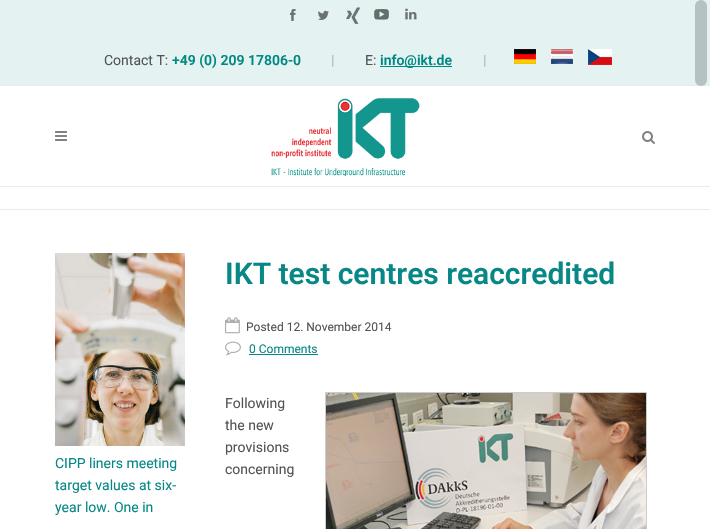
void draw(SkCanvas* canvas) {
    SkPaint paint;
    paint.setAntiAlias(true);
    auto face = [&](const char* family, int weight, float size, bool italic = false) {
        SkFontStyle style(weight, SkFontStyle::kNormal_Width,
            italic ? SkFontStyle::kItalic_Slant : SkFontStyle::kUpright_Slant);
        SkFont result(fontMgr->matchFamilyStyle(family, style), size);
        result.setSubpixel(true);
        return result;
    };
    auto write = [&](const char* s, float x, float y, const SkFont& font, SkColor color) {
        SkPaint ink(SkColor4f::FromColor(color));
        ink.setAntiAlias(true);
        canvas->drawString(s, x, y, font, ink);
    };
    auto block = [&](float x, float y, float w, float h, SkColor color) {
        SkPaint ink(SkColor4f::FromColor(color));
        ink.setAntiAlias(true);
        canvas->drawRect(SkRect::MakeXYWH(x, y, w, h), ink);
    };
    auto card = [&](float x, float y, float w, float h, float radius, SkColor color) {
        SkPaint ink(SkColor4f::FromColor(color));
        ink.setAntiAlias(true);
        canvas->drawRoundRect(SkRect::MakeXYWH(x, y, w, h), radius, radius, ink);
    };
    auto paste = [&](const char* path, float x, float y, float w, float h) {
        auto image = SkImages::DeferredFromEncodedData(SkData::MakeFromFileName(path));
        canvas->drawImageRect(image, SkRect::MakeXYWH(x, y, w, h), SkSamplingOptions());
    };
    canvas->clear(SK_ColorWHITE);
    block(0, 0, 710, 85, SkColorSetRGB(228, 242, 241));
    block(0, 85, 710, 1, SkColorSetRGB(234, 234, 234));
    card(695, 0, 12, 86, 6, SkColorSetARGB(51, 0, 0, 0));
    paste("pic1.png", 290, 9, 6, 12);
    paste("pic2.png", 318, 10, 11, 10);
    paste("pic3.png", 346, 7, 15, 17);
    paste("pic4.png", 374, 9, 15, 11);
    paste("pic5.png", 405, 8, 12, 12);
    auto kFont1 = face("Roboto", 400, 14);
    write("Contact T:", 104, 65, kFont1, SkColorSetRGB(84, 84, 84));
    auto kFont2 = face("Roboto", 600, 14);
    write("+49 (0) 209 17806-0", 172, 65, kFont2, SkColorSetRGB(0, 137, 130));
    auto kFont3 = face("Roboto", 500, 14);
    write("|", 331, 65, kFont3, SkColorSetRGB(187, 187, 187));
    write("E:", 365, 65, kFont1, SkColorSetRGB(84, 84, 84));
    block(380, 66, 72, 1, SkColorSetRGB(0, 137, 130));
    write("info@ikt.de", 380, 65, kFont2, SkColorSetRGB(0, 137, 130));
    write("|", 483, 65, kFont3, SkColorSetRGB(187, 187, 187));
    paste("pic6.png", 514, 49, 22, 15);
    paste("pic7.png", 551, 49, 22, 15);
    paste("pic8.png", 588, 49, 24, 16);
    block(0, 186, 710, 1, SkColorSetRGB(235, 235, 235));
    paste("pic9.png", 55, 131, 12, 10);
    paste("pic10.png", 271, 98, 149, 78);
    paste("pic11.png", 642, 131, 13, 13);
    block(0, 209, 710, 1, SkColorSetRGB(234, 234, 234));
    auto kFont4 = face("Roboto", 600, 30);
    write("IKT test centres reaccredited", 225, 284, kFont4, SkColorSetRGB(8, 135, 135));
    paste("pic12.png", 225, 317, 15, 17);
    auto kFont5 = face("Roboto", 400, 12);
    write("Posted 12. November 2014", 246, 331, kFont5, SkColorSetRGB(84, 84, 84));
    paste("pic13.png", 225, 341, 16, 15);
    write("0 Comments", 249, 353, kFont5, SkColorSetRGB(8, 135, 135));
    block(249, 354, 69, 1, SkColorSetRGB(8, 135, 135));
    write("Following", 225, 408, kFont1, SkColorSetRGB(84, 84, 84));
    paint.setStyle(SkPaint::kStroke_Style);
    paint.setStrokeWidth(1);
    paint.setColor(SkColorSetRGB(204, 204, 204));
    canvas->drawRect(SkRect::MakeXYWH(325.5f, 392.5f, 321, 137), paint);
    paste("pic14.png", 326, 393, 320, 136);
    write("the new", 225, 430, kFont1, SkColorSetRGB(84, 84, 84));
    write("provisions", 225, 452, kFont1, SkColorSetRGB(84, 84, 84));
    write("concerning", 225, 474, kFont1, SkColorSetRGB(84, 84, 84));
    paste("pic15.png", 55, 253, 130, 193);
    write("CIPP liners meeting", 55, 468, kFont1, SkColorSetRGB(8, 135, 135));
    write("target values at six-", 55, 490, kFont1, SkColorSetRGB(8, 135, 135));
    write("year low. One in", 55, 512, kFont1, SkColorSetRGB(8, 135, 135));
}
